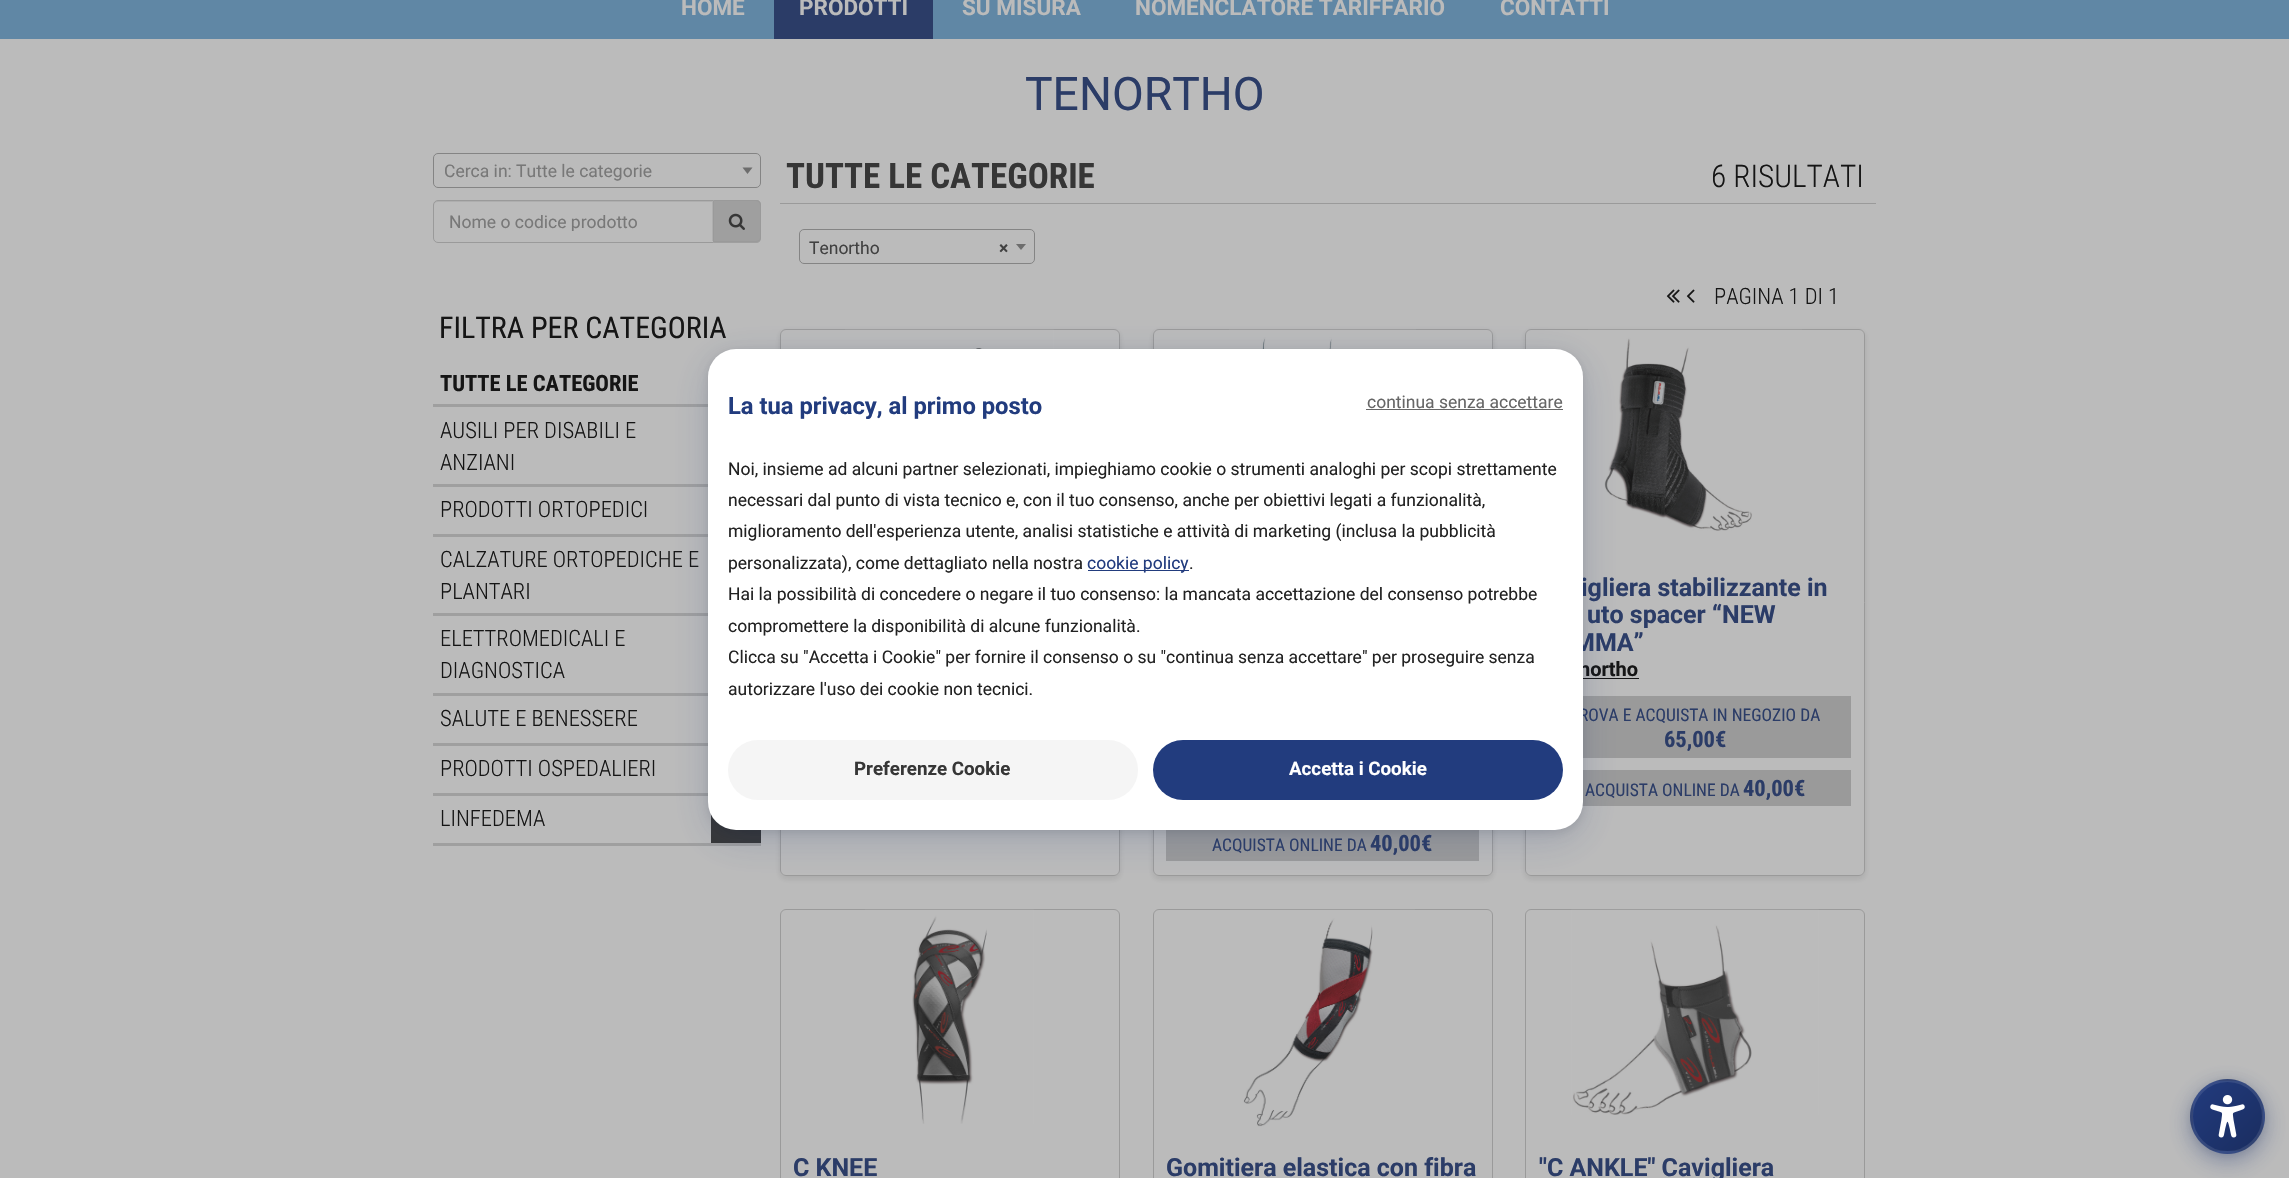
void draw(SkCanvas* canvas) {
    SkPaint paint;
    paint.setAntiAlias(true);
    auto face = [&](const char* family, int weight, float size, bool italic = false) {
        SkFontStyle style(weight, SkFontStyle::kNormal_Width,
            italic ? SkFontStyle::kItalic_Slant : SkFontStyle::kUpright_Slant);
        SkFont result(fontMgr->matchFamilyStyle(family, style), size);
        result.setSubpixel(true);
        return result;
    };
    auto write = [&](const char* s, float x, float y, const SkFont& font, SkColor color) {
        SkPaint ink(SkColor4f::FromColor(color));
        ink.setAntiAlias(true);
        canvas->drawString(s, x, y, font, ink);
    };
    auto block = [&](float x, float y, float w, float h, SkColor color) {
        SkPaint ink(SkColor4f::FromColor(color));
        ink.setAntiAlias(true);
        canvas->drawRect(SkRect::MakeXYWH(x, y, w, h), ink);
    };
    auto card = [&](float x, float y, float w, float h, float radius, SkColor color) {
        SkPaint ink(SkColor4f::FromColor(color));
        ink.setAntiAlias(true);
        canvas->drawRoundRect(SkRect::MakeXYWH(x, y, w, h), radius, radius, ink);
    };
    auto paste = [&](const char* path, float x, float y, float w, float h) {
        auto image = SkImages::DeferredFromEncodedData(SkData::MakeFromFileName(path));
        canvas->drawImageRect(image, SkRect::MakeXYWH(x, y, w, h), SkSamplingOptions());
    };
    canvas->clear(SkColorSetRGB(187, 187, 187));
    block(0, 0, 2289, 39, SkColorSetRGB(96, 135, 165));
    auto kFont1 = face("Roboto", 700, 22.5f);
    write("HOME", 681, 15, kFont1, SkColorSetRGB(187, 187, 187));
    block(774, 0, 159, 39, SkColorSetRGB(43, 60, 103));
    write("PRODOTTI", 799, 15, kFont1, SkColorSetRGB(187, 187, 187));
    write("SU MISURA", 962, 15, kFont1, SkColorSetRGB(187, 187, 187));
    write("NOMENCLATORE TARIFFARIO", 1135, 15, kFont1, SkColorSetRGB(187, 187, 187));
    write("CONTATTI", 1500, 15, kFont1, SkColorSetRGB(187, 187, 187));
    auto kFont2 = face("Roboto", 400, 46.25f);
    write("TENORTHO", 1025, 110, kFont2, SkColorSetRGB(43, 60, 103));
    paint.setStyle(SkPaint::kStroke_Style);
    paint.setStrokeWidth(1);
    paint.setColor(SkColorSetRGB(132, 132, 132));
    canvas->drawRoundRect(SkRect::MakeXYWH(433.5f, 153.5f, 327, 34), 4.5f, 4.5f, paint);
    auto kFont3 = face("Roboto", 400, 17.5f);
    write("Cerca in: Tutte le categorie", 444, 177, kFont3, SkColorSetRGB(120, 120, 120));
    paint.setStyle(SkPaint::kFill_Style);
    paint.setColor(SkColorSetRGB(109, 109, 109));
    canvas->drawPath(SkPathBuilder().moveTo(742.5f, 167.5f).lineTo(752.5f, 167.5f).lineTo(747.5f, 174).close().detach(), paint);
    paint.setColor(SkColorSetRGB(174, 174, 174));
    canvas->drawPath(SkPathBuilder().moveTo(438, 202).lineTo(712, 202).lineTo(712, 241).lineTo(713, 241).lineTo(713, 201).lineTo(438, 201).cubicTo(435, 201, 434, 203, 434, 206).cubicTo(434, 204, 435, 202, 438, 202).close().detach(), paint);
    paint.setStyle(SkPaint::kStroke_Style);
    paint.setColor(SkColorSetRGB(154, 154, 154));
    canvas->drawPath(SkPathBuilder().moveTo(438, 200.5f).lineTo(713.5f, 200.5f).lineTo(713.5f, 242.5f).lineTo(438, 242.5f).cubicTo(435.5f, 242.5f, 433.5f, 240.5f, 433.5f, 238).lineTo(433.5f, 205).cubicTo(433.5f, 202.5f, 435.5f, 200.5f, 438, 200.5f).close().detach(), paint);
    canvas->save();
    canvas->clipRect(SkRect::MakeXYWH(449, 211, 249, 20));
    write("Nome o codice prodotto", 449, 228, kFont3, SkColorSetRGB(120, 120, 120));
    canvas->restore();
    paint.setStyle(SkPaint::kFill_Style);
    paint.setColor(SkColorSetRGB(159, 159, 159));
    canvas->drawPath(SkPathBuilder().moveTo(714, 200).lineTo(756, 200).cubicTo(759, 200, 761, 202, 761, 205).lineTo(761, 238).cubicTo(761, 241, 759, 243, 756, 243).lineTo(714, 243).close().detach(), paint);
    paint.setColor(SkColorSetRGB(154, 154, 154));
    canvas->drawPath(SkPathBuilder(SkPathFillType::kEvenOdd).moveTo(714, 200).lineTo(756, 200).cubicTo(759, 200, 761, 202, 761, 205).lineTo(761, 238).cubicTo(761, 240, 759, 242, 756, 242).lineTo(714, 242).close().moveTo(714, 201).lineTo(756, 201).cubicTo(758, 201, 760, 203, 760, 205).lineTo(760, 238).cubicTo(760, 240, 758, 241, 756, 241).lineTo(714, 241).close().detach(), paint);
    paste("pic1.png", 728, 213, 17, 17);
    auto kFont4 = face("Roboto Condensed", 400, 30);
    write("FILTRA PER CATEGORIA", 439, 338, kFont4, SkColorSetRGB(21, 21, 21));
    block(433, 404, 275, 3, SkColorSetRGB(159, 159, 159));
    auto kFont5 = face("Roboto Condensed", 700, 22.5f);
    write("TUTTE LE CATEGORIE", 440, 391, kFont5, SkColorSetRGB(21, 21, 21));
    block(433, 484, 275, 3, SkColorSetRGB(159, 159, 159));
    auto kFont6 = face("Roboto Condensed", 300, 22.5f);
    write("AUSILI PER DISABILI E", 440, 438, kFont6, SkColorSetRGB(21, 21, 21));
    write("ANZIANI", 440, 470, kFont6, SkColorSetRGB(21, 21, 21));
    block(433, 534, 275, 3, SkColorSetRGB(159, 159, 159));
    write("PRODOTTI ORTOPEDICI", 440, 517, kFont6, SkColorSetRGB(21, 21, 21));
    block(433, 613, 275, 3, SkColorSetRGB(159, 159, 159));
    write("CALZATURE ORTOPEDICHE E", 440, 567, kFont6, SkColorSetRGB(21, 21, 21));
    write("PLANTARI", 440, 599, kFont6, SkColorSetRGB(21, 21, 21));
    block(433, 693, 275, 3, SkColorSetRGB(159, 159, 159));
    write("ELETTROMEDICALI E", 440, 646, kFont6, SkColorSetRGB(21, 21, 21));
    write("DIAGNOSTICA", 440, 678, kFont6, SkColorSetRGB(21, 21, 21));
    block(433, 743, 275, 3, SkColorSetRGB(159, 159, 159));
    write("SALUTE E BENESSERE", 440, 726, kFont6, SkColorSetRGB(21, 21, 21));
    block(433, 793, 275, 3, SkColorSetRGB(159, 159, 159));
    write("PRODOTTI OSPEDALIERI", 440, 776, kFont6, SkColorSetRGB(21, 21, 21));
    block(433, 843, 328, 3, SkColorSetRGB(159, 159, 159));
    write("LINFEDEMA", 440, 826, kFont6, SkColorSetRGB(21, 21, 21));
    block(711, 814, 50, 29, SkColorSetRGB(54, 54, 54));
    block(780, 203, 1096, 1, SkColorSetRGB(154, 154, 154));
    auto kFont7 = face("Roboto Condensed", 700, 35);
    write("TUTTE LE CATEGORIE", 786, 188, kFont7, SkColorSetRGB(54, 54, 54));
    auto kFont8 = face("Roboto Condensed", 300, 31.25f);
    write("6 RISULTATI", 1711, 187, kFont8, SkColorSetRGB(21, 21, 21));
    paint.setStyle(SkPaint::kStroke_Style);
    paint.setColor(SkColorSetRGB(132, 132, 132));
    canvas->drawRoundRect(SkRect::MakeXYWH(799.5f, 229.5f, 235, 34), 4.5f, 4.5f, paint);
    write("Tenortho", 809, 254, kFont3, SkColorSetRGB(65, 65, 65));
    auto kFont9 = face("Roboto", 700, 17.5f);
    write("×", 999, 254, kFont9, SkColorSetRGB(65, 65, 65));
    paint.setStyle(SkPaint::kFill_Style);
    paint.setColor(SkColorSetRGB(109, 109, 109));
    canvas->drawPath(SkPathBuilder().moveTo(1016, 244).lineTo(1026, 244).lineTo(1021, 250).close().detach(), paint);
    paste("pic2.png", 1666, 289, 14, 14);
    paste("pic3.png", 1686, 289, 9, 14);
    write("PAGINA 1 DI 1", 1714, 304, kFont6, SkColorSetRGB(21, 21, 21));
    canvas->save();
    canvas->clipPath(SkPathBuilder(SkPathFillType::kEvenOdd).moveTo(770, 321).lineTo(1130, 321).lineTo(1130, 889).lineTo(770, 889).close().moveTo(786, 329).lineTo(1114, 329).cubicTo(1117.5f, 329, 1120, 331.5f, 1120, 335).lineTo(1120, 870).cubicTo(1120, 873.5f, 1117.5f, 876, 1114, 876).lineTo(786, 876).cubicTo(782.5f, 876, 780, 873.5f, 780, 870).lineTo(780, 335).cubicTo(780, 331.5f, 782.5f, 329, 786, 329).close().detach(), true);
    paint.setColor(SkColorSetARGB(26, 21, 21, 21));
    paint.setMaskFilter(SkMaskFilter::MakeBlur(kNormal_SkBlurStyle, 3));
    canvas->drawRoundRect(SkRect::MakeXYWH(780, 331, 340, 548), 6, 6, paint);
    paint.setMaskFilter(nullptr);
    canvas->restore();
    paint.setStyle(SkPaint::kStroke_Style);
    paint.setColor(SkColorSetRGB(154, 154, 154));
    canvas->drawRoundRect(SkRect::MakeXYWH(780.5f, 329.5f, 339, 546), 5.5f, 5.5f, paint);
    paste("pic4.png", 845, 329, 209, 20);
    canvas->save();
    canvas->clipPath(SkPathBuilder(SkPathFillType::kEvenOdd).moveTo(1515, 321).lineTo(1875, 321).lineTo(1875, 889).lineTo(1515, 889).close().moveTo(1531, 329).lineTo(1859, 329).cubicTo(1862.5f, 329, 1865, 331.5f, 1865, 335).lineTo(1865, 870).cubicTo(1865, 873.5f, 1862.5f, 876, 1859, 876).lineTo(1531, 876).cubicTo(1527.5f, 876, 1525, 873.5f, 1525, 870).lineTo(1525, 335).cubicTo(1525, 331.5f, 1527.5f, 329, 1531, 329).close().detach(), true);
    paint.setStyle(SkPaint::kFill_Style);
    paint.setColor(SkColorSetARGB(26, 21, 21, 21));
    paint.setMaskFilter(SkMaskFilter::MakeBlur(kNormal_SkBlurStyle, 3));
    canvas->drawRoundRect(SkRect::MakeXYWH(1525, 331, 340, 548), 6, 6, paint);
    paint.setMaskFilter(nullptr);
    canvas->restore();
    paint.setStyle(SkPaint::kStroke_Style);
    paint.setColor(SkColorSetRGB(154, 154, 154));
    canvas->drawRoundRect(SkRect::MakeXYWH(1525.5f, 329.5f, 339, 546), 5.5f, 5.5f, paint);
    paste("pic5.png", 1588, 329, 214, 202);
    auto kFont10 = face("Roboto", 700, 25);
    write("igliera stabilizzante in", 1581, 596, kFont10, SkColorSetRGB(43, 60, 103));
    write("uto spacer “NEW", 1587, 623, kFont10, SkColorSetRGB(43, 60, 103));
    write("MMA”", 1573, 651, kFont10, SkColorSetRGB(43, 60, 103));
    auto kFont11 = face("Roboto", 700, 20);
    write("northo", 1579, 676, kFont11, SkColorSetRGB(21, 21, 21));
    block(1583, 678, 56, 1, SkColorSetRGB(21, 21, 21));
    block(1583, 696, 268, 62, SkColorSetRGB(154, 154, 154));
    auto kFont12 = face("Roboto Condensed", 400, 17.5f);
    write("ROVA E ACQUISTA IN NEGOZIO DA", 1579, 721, kFont12, SkColorSetRGB(43, 60, 103));
    write("65,00€", 1664, 747, kFont5, SkColorSetRGB(43, 60, 103));
    block(1582, 770, 269, 36, SkColorSetRGB(154, 154, 154));
    write("ACQUISTA ONLINE DA", 1585, 796, kFont12, SkColorSetRGB(43, 60, 103));
    write("40,00€", 1743, 796, kFont5, SkColorSetRGB(43, 60, 103));
    canvas->save();
    canvas->clipPath(SkPathBuilder(SkPathFillType::kEvenOdd).moveTo(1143, 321).lineTo(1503, 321).lineTo(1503, 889).lineTo(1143, 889).close().moveTo(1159, 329).lineTo(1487, 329).cubicTo(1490.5f, 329, 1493, 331.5f, 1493, 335).lineTo(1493, 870).cubicTo(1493, 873.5f, 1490.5f, 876, 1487, 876).lineTo(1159, 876).cubicTo(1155.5f, 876, 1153, 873.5f, 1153, 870).lineTo(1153, 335).cubicTo(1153, 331.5f, 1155.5f, 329, 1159, 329).close().detach(), true);
    paint.setStyle(SkPaint::kFill_Style);
    paint.setColor(SkColorSetARGB(26, 21, 21, 21));
    paint.setMaskFilter(SkMaskFilter::MakeBlur(kNormal_SkBlurStyle, 3));
    canvas->drawRoundRect(SkRect::MakeXYWH(1153, 331, 340, 548), 6, 6, paint);
    paint.setMaskFilter(nullptr);
    canvas->restore();
    paint.setStyle(SkPaint::kStroke_Style);
    paint.setColor(SkColorSetRGB(154, 154, 154));
    canvas->drawRoundRect(SkRect::MakeXYWH(1153.5f, 329.5f, 339, 546), 5.5f, 5.5f, paint);
    paste("pic6.png", 1229, 329, 187, 20);
    block(1166, 830, 313, 31, SkColorSetRGB(154, 154, 154));
    write("ACQUISTA ONLINE DA", 1212, 851, kFont12, SkColorSetRGB(43, 60, 103));
    write("40,00€", 1370, 851, kFont5, SkColorSetRGB(43, 60, 103));
    canvas->drawRoundRect(SkRect::MakeXYWH(780.5f, 909.5f, 339, 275), 5.5f, 5.5f, paint);
    paste("pic7.png", 865, 909, 169, 215);
    write("C KNEE", 793, 1176, kFont10, SkColorSetRGB(43, 60, 103));
    canvas->drawRoundRect(SkRect::MakeXYWH(1153.5f, 909.5f, 339, 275), 5.5f, 5.5f, paint);
    paste("pic8.png", 1230, 909, 185, 218);
    write("Gomitiera elastica con fibra", 1166, 1176, kFont10, SkColorSetRGB(43, 60, 103));
    canvas->drawRoundRect(SkRect::MakeXYWH(1525.5f, 909.5f, 339, 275), 5.5f, 5.5f, paint);
    paste("pic9.png", 1571, 909, 248, 206);
    write("\"C ANKLE\" Cavigliera", 1539, 1176, kFont10, SkColorSetRGB(43, 60, 103));
    paint.setStyle(SkPaint::kFill_Style);
    paint.setColor(SkColorSetARGB(26, 0, 0, 0));
    paint.setMaskFilter(SkMaskFilter::MakeBlur(kNormal_SkBlurStyle, 5));
    canvas->drawRoundRect(SkRect::MakeXYWH(708, 351, 875, 482), 28, 28, paint);
    paint.setMaskFilter(nullptr);
    paint.setColor(SkColorSetARGB(46, 34, 60, 126));
    paint.setMaskFilter(SkMaskFilter::MakeBlur(kNormal_SkBlurStyle, 20));
    canvas->drawRoundRect(SkRect::MakeXYWH(708, 359, 875, 481), 28, 28, paint);
    paint.setMaskFilter(nullptr);
    card(708, 349, 875, 481, 28, SK_ColorWHITE);
    auto kFont13 = face("Roboto", 700, 23.75f);
    write("La tua privacy, al primo posto", 728, 414, kFont13, SkColorSetRGB(34, 60, 126));
    write("continua senza accettare", 1367, 408, kFont3, SkColorSetRGB(102, 102, 102));
    block(1366, 409, 197, 1, SkColorSetRGB(102, 102, 102));
    write("Noi, insieme ad alcuni partner selezionati, impieghiamo cookie o strumenti analoghi per scopi strettamente", 728, 475, kFont3, SkColorSetRGB(34, 34, 34));
    write("necessari dal punto di vista tecnico e, con il tuo consenso, anche per obiettivi legati a funzionalità,", 728, 506, kFont3, SkColorSetRGB(34, 34, 34));
    write("miglioramento dell'esperienza utente, analisi statistiche e attività di marketing (inclusa la pubblicità", 728, 537, kFont3, SkColorSetRGB(34, 34, 34));
    write("personalizzata), come dettagliato nella nostra", 728, 569, kFont3, SkColorSetRGB(34, 34, 34));
    block(1088, 570, 101, 1, SkColorSetRGB(34, 60, 126));
    write("cookie policy", 1087, 569, kFont3, SkColorSetRGB(34, 60, 126));
    write(".", 1189, 569, kFont3, SkColorSetRGB(34, 34, 34));
    write("Hai la possibilità di concedere o negare il tuo consenso: la mancata accettazione del consenso potrebbe", 728, 600, kFont3, SkColorSetRGB(34, 34, 34));
    write("compromettere la disponibilità di alcune funzionalità.", 728, 632, kFont3, SkColorSetRGB(34, 34, 34));
    write("Clicca su \"Accetta i Cookie\" per fornire il consenso o su \"continua senza accettare\" per proseguire senza", 728, 663, kFont3, SkColorSetRGB(34, 34, 34));
    write("autorizzare l'uso dei cookie non tecnici.", 728, 695, kFont3, SkColorSetRGB(34, 34, 34));
    card(728, 740, 410, 60, 30, SkColorSetRGB(245, 245, 245));
    auto kFont14 = face("Roboto", 700, 18.75f);
    write("Preferenze Cookie", 854, 775, kFont14, SkColorSetRGB(54, 54, 54));
    card(1153, 740, 410, 60, 30, SkColorSetRGB(34, 60, 126));
    write("Accetta i Cookie", 1289, 775, kFont14, SK_ColorWHITE);
    paint.setColor(SkColorSetARGB(26, 0, 0, 0));
    paint.setMaskFilter(SkMaskFilter::MakeBlur(kNormal_SkBlurStyle, 4));
    canvas->drawRoundRect(SkRect::MakeXYWH(2190, 1081, 75, 75), 37.5f, 37.5f, paint);
    paint.setMaskFilter(nullptr);
    paint.setColor(SkColorSetARGB(102, 34, 59, 126));
    paint.setMaskFilter(SkMaskFilter::MakeBlur(kNormal_SkBlurStyle, 12.5f));
    canvas->drawRoundRect(SkRect::MakeXYWH(2190, 1086, 75, 75), 37.5f, 37.5f, paint);
    paint.setMaskFilter(nullptr);
    canvas->save();
    canvas->clipPath(SkPathBuilder().moveTo(2227.5f, 1079).cubicTo(2248, 1079, 2265, 1096, 2265, 1116.5f).cubicTo(2265, 1137, 2248, 1154, 2227.5f, 1154).cubicTo(2207, 1154, 2190, 1137, 2190, 1116.5f).cubicTo(2190, 1096, 2207, 1079, 2227.5f, 1079).close().detach(), true);
    {
        const SkColor colors[] = {SkColorSetRGB(34, 59, 126), SkColorSetRGB(26, 45, 95)};
        const float stops[] = {0, 1};
        const SkPoint ends[] = {{2193, 1011}, {2263, 1081}};
        paint.setShader(SkGradientShader::MakeLinear(ends, colors, stops, 2, SkTileMode::kClamp));
        paint.setAlpha(255);
    }
    canvas->drawRect(SkRect::MakeXYWH(2215, 1079, 25, 2), paint);
    {
        const SkColor colors[] = {SkColorSetRGB(34, 59, 126), SkColorSetRGB(26, 45, 95)};
        const float stops[] = {0, 1};
        const SkPoint ends[] = {{2123, 1081}, {2193, 1151}};
        paint.setShader(SkGradientShader::MakeLinear(ends, colors, stops, 2, SkTileMode::kClamp));
        paint.setAlpha(255);
    }
    canvas->drawRect(SkRect::MakeXYWH(2190, 1102, 3, 29), paint);
    {
        const SkColor colors[] = {SkColorSetRGB(34, 59, 126), SkColorSetRGB(26, 45, 95)};
        const float stops[] = {0, 1};
        const SkPoint ends[] = {{2193, 1081}, {2263, 1151}};
        paint.setShader(SkGradientShader::MakeLinear(ends, colors, stops, 2, SkTileMode::kClamp));
        paint.setAlpha(255);
    }
    canvas->drawRect(SkRect::MakeXYWH(2193, 1081, 70, 70), paint);
    {
        const SkColor colors[] = {SkColorSetRGB(34, 59, 126), SkColorSetRGB(26, 45, 95)};
        const float stops[] = {0, 1};
        const SkPoint ends[] = {{2263, 1081}, {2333, 1151}};
        paint.setShader(SkGradientShader::MakeLinear(ends, colors, stops, 2, SkTileMode::kClamp));
        paint.setAlpha(255);
    }
    canvas->drawRect(SkRect::MakeXYWH(2263, 1104, 2, 25), paint);
    {
        const SkColor colors[] = {SkColorSetRGB(34, 59, 126), SkColorSetRGB(26, 45, 95)};
        const float stops[] = {0, 1};
        const SkPoint ends[] = {{2193, 1151}, {2263, 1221}};
        paint.setShader(SkGradientShader::MakeLinear(ends, colors, stops, 2, SkTileMode::kClamp));
        paint.setAlpha(255);
    }
    canvas->drawRect(SkRect::MakeXYWH(2213, 1151, 29, 3), paint);
    canvas->restore();
    paint.setStyle(SkPaint::kStroke_Style);
    paint.setStrokeWidth(3);
    paint.setShader(nullptr);
    paint.setColor(SkColorSetARGB(26, 255, 255, 255));
    canvas->drawCircle(2227.5f, 1116.5f, 36, paint);
    paste("pic10.png", 2210, 1095, 35, 43);
}
